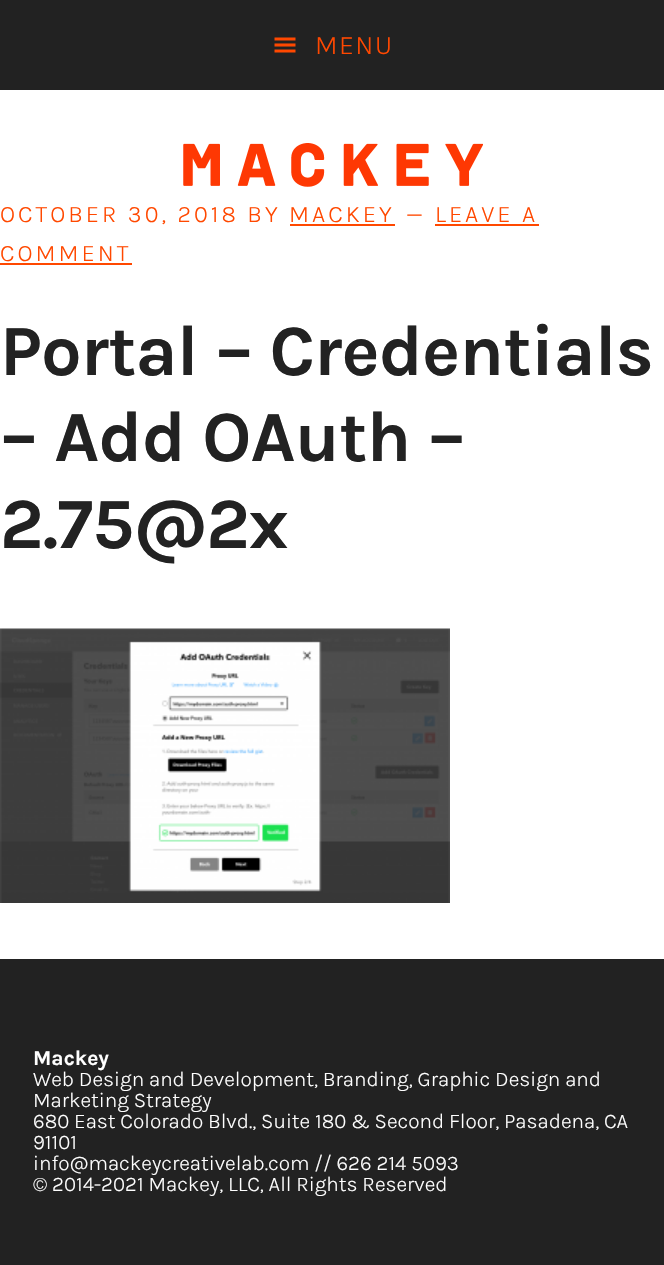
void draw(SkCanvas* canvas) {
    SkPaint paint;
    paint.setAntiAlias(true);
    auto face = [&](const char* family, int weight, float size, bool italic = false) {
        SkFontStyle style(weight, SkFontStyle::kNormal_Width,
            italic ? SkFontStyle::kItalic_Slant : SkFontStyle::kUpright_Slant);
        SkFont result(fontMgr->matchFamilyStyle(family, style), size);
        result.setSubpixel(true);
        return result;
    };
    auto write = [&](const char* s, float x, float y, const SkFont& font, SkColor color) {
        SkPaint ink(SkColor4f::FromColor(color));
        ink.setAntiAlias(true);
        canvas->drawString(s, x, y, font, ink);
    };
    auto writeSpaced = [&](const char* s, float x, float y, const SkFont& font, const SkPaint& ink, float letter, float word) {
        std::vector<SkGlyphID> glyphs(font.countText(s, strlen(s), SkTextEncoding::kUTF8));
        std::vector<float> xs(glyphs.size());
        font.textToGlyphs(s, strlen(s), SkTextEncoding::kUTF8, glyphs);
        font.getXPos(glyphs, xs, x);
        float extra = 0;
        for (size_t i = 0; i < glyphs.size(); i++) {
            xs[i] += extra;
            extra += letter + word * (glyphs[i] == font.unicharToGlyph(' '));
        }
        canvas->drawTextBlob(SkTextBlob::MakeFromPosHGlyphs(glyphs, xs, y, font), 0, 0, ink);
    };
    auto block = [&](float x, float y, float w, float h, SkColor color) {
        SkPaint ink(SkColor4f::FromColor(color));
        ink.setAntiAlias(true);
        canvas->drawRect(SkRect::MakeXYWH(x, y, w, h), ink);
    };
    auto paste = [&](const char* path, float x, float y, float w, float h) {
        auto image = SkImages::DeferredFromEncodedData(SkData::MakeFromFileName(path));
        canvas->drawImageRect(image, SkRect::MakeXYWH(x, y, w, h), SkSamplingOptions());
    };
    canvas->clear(SK_ColorWHITE);
    block(0, 0, 664, 90, SkColorSetRGB(34, 34, 34));
    paste("pic1.png", 274, 37, 22, 16);
    auto kFont1 = face("Karla", 300, 27);
    paint.setColor(SkColorSetRGB(255, 72, 0));
    writeSpaced("MENU", 315, 54, kFont1, paint, 1.5f, 0);
    paste("pic2.png", 183, 143, 300, 44);
    auto kFont2 = face("Karla", 300, 24);
    writeSpaced("OCTOBER 30, 2018 BY MACKEY", 0, 222, kFont2, paint, 3, 0);
    writeSpaced("—", 406, 222, kFont2, paint, 3, 0);
    writeSpaced("LEAVE A", 435, 222, kFont2, paint, 3, 0);
    block(435, 224, 104, 2, SkColorSetRGB(255, 72, 0));
    block(290, 224, 105, 2, SkColorSetRGB(255, 72, 0));
    writeSpaced("COMMENT", 0, 261, kFont2, paint, 3, 0);
    block(0, 263, 132, 2, SkColorSetRGB(255, 72, 0));
    auto kFont3 = face("Karla", 700, 72);
    paint.setColor(SkColorSetRGB(34, 34, 34));
    writeSpaced("Portal – Credentials", 0, 375, kFont3, paint, -0.9f, 0);
    writeSpaced("– Add OAuth –", 0, 461, kFont3, paint, -0.9f, 0);
    writeSpaced("2.75@2x", 0, 548, kFont3, paint, -0.9f, 0);
    paste("pic3.png", 0, 628, 450, 275);
    block(0, 959, 664, 306, SkColorSetRGB(34, 34, 34));
    auto kFont4 = face("Karla", 700, 21);
    write("Mackey", 33, 1065, kFont4, SK_ColorWHITE);
    auto kFont5 = face("Karla", 300, 21);
    write("Web Design and Development, Branding, Graphic Design and", 33, 1086, kFont5, SK_ColorWHITE);
    write("Marketing Strategy", 33, 1107, kFont5, SK_ColorWHITE);
    write("680 East Colorado Blvd., Suite 180 & Second Floor, Pasadena, CA", 33, 1128, kFont5, SK_ColorWHITE);
    write("91101", 33, 1149, kFont5, SK_ColorWHITE);
    write("info@mackeycreativelab.com // 626 214 5093", 33, 1170, kFont5, SK_ColorWHITE);
    write("© 2014-2021 Mackey, LLC, All Rights Reserved", 33, 1191, kFont5, SK_ColorWHITE);
}
